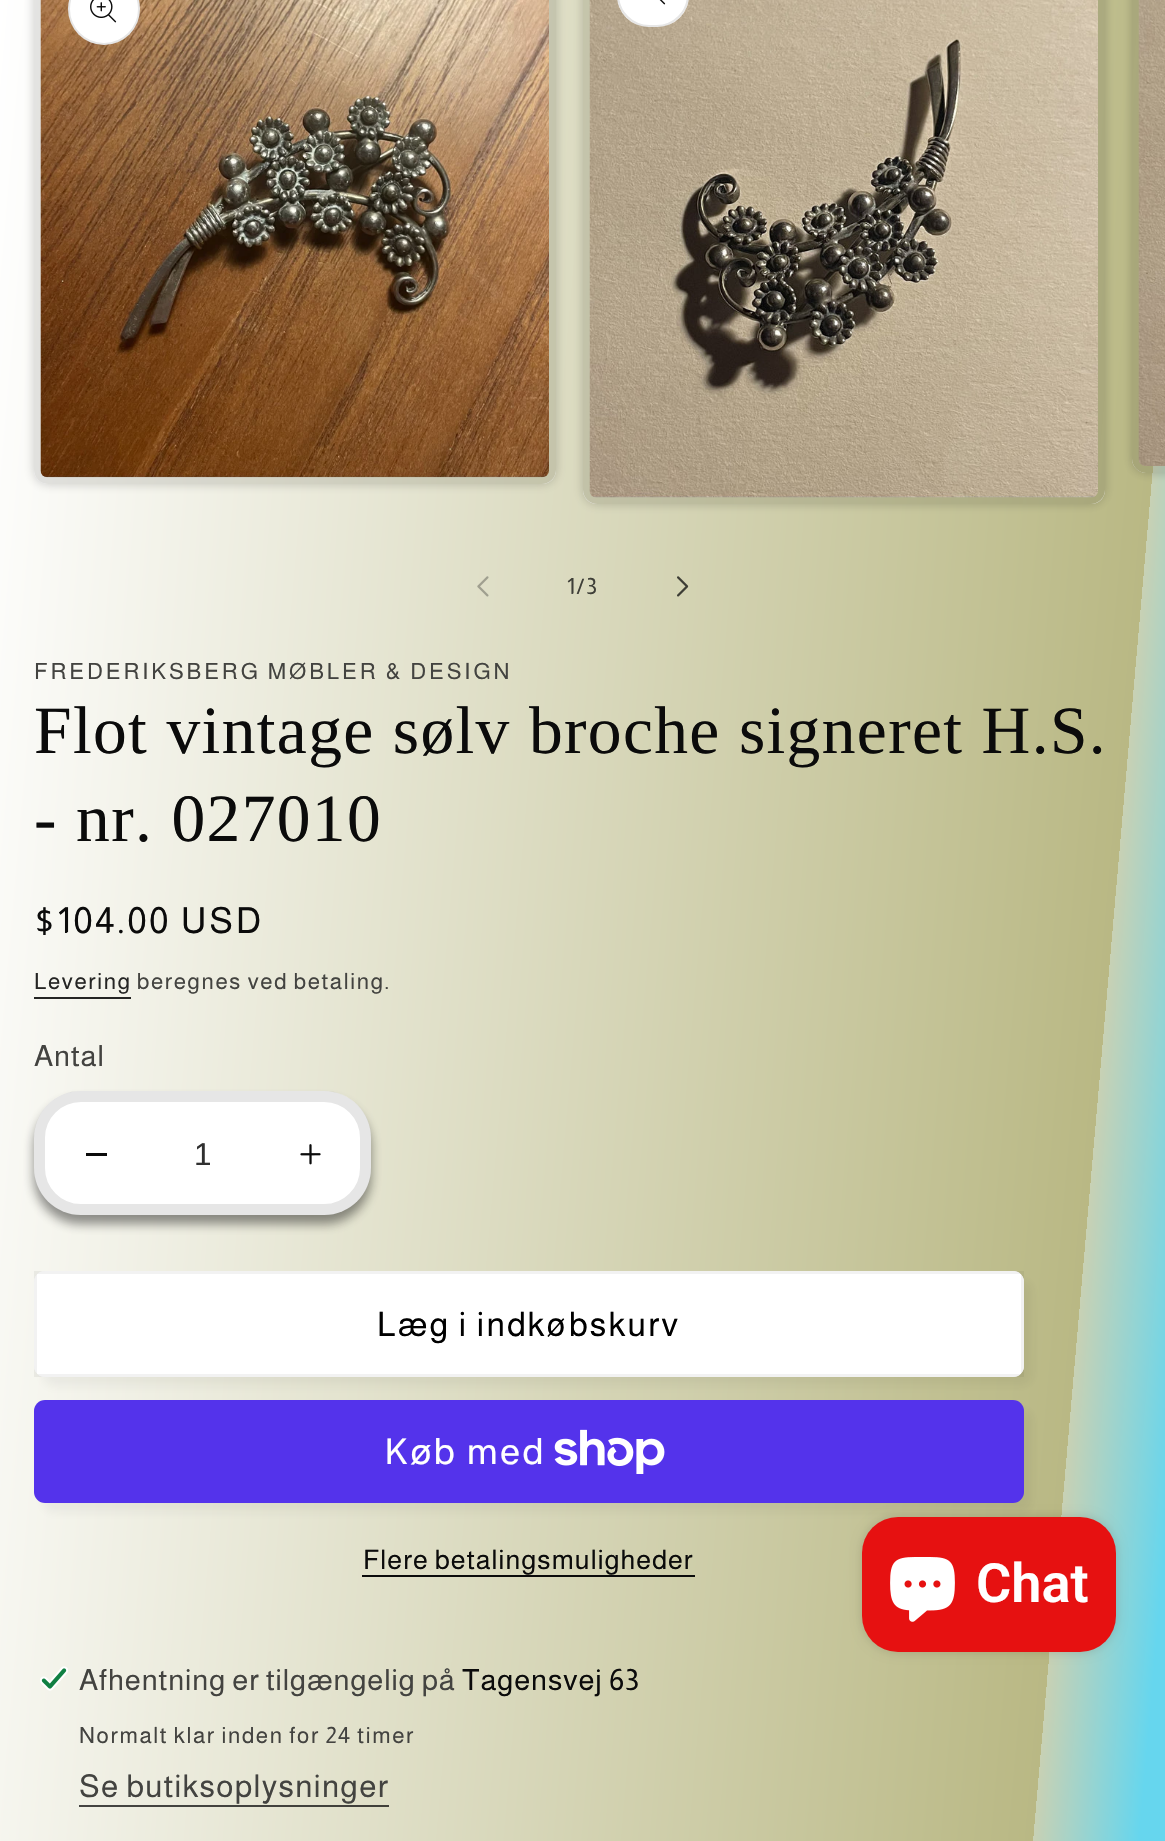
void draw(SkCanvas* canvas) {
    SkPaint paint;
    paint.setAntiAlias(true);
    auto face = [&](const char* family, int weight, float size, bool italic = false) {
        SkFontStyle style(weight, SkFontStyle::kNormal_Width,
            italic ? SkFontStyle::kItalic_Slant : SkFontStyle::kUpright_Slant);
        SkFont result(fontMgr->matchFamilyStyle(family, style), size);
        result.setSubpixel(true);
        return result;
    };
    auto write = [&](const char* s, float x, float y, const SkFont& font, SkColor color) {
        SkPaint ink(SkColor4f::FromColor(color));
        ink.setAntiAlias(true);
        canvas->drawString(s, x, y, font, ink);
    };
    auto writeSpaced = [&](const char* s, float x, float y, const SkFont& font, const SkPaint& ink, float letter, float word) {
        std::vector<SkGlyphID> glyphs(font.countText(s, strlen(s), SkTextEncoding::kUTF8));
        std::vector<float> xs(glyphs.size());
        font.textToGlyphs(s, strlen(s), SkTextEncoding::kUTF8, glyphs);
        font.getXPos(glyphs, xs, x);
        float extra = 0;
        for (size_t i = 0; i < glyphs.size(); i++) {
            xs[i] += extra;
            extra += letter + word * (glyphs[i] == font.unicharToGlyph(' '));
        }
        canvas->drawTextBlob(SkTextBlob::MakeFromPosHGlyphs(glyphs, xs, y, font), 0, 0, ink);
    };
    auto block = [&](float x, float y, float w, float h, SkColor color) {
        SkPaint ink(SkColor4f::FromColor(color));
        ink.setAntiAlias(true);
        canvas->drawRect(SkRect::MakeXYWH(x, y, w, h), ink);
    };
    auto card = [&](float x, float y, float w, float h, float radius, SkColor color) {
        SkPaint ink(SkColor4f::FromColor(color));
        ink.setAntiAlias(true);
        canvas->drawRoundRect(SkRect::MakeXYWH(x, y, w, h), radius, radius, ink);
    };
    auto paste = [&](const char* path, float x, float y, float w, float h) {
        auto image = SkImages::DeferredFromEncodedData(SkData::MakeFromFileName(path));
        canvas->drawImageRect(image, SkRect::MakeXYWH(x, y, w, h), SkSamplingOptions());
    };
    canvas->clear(SK_ColorWHITE);
    {
        const SkColor colors[] = {SkColorSetRGB(102, 214, 238), SkColorSetRGB(200, 209, 180), SkColorSetRGB(185, 184, 132), SK_ColorWHITE};
        const float stops[] = {0.02f, 0.1f, 0.1f, 1};
        const SkPoint ends[] = {{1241, 979}, {-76, 864}};
        paint.setShader(SkGradientShader::MakeLinear(ends, colors, stops, 4, SkTileMode::kClamp));
        paint.setAlpha(255);
    }
    canvas->drawRect(SkRect::MakeXYWH(0, 0, 1165, 1841), paint);
    {
        const SkColor colors[] = {SkColorSetRGB(34, 62, 68), SkColorSetRGB(58, 61, 53), SkColorSetRGB(55, 54, 41), SkColorSetRGB(72, 72, 72)};
        const float stops[] = {0.02f, 0.1f, 0.1f, 1};
        const SkPoint ends[] = {{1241, 979}, {-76, 864}};
        paint.setShader(SkGradientShader::MakeLinear(ends, colors, stops, 4, SkTileMode::kClamp));
        paint.setAlpha(255);
    }
    canvas->drawRect(SkRect::MakeXYWH(79, 1805, 310, 2), paint);
    {
        const SkColor colors[] = {SkColorSetRGB(15, 32, 36), SkColorSetRGB(30, 31, 27), SkColorSetRGB(28, 28, 20), SkColorSetRGB(38, 38, 38)};
        const float stops[] = {0.02f, 0.1f, 0.1f, 1};
        const SkPoint ends[] = {{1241, 979}, {-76, 864}};
        paint.setShader(SkGradientShader::MakeLinear(ends, colors, stops, 4, SkTileMode::kClamp));
        paint.setAlpha(255);
    }
    canvas->drawRect(SkRect::MakeXYWH(34, 997, 97, 2), paint);
    paint.setShader(nullptr);
    paint.setColor(SkColorSetARGB(51, 11, 11, 11));
    paint.setMaskFilter(SkMaskFilter::MakeBlur(kNormal_SkBlurStyle, 5.5f));
    canvas->drawRoundRect(SkRect::MakeXYWH(34, -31, 522, 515), 14, 14, paint);
    paint.setMaskFilter(nullptr);
    card(34, -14, 522, 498, 14, SK_ColorWHITE);
    {
        const SkColor colors[] = {SkColorSetRGB(102, 214, 238), SkColorSetRGB(200, 209, 180), SkColorSetARGB(222, 174, 173, 114), SK_ColorWHITE};
        const float stops[] = {0.02f, 0.1f, 0.1f, 1};
        const SkPoint ends[] = {{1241, 979}, {-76, 864}};
        paint.setShader(SkGradientShader::MakeLinear(ends, colors, stops, 4, SkTileMode::kClamp));
        paint.setAlpha(255);
    }
    canvas->drawPath(SkPathBuilder().moveTo(34, 0).lineTo(556, 0).lineTo(556, 470).cubicTo(556, 477.5f, 549.5f, 484, 542, 484).lineTo(48, 484).cubicTo(40.5f, 484, 34, 477.5f, 34, 470).close().detach(), paint);
    paint.setStyle(SkPaint::kStroke_Style);
    paint.setStrokeWidth(7);
    paint.setShader(nullptr);
    paint.setColor(SkColorSetARGB(26, 11, 11, 11));
    canvas->drawRoundRect(SkRect::MakeXYWH(37.5f, -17.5f, 515, 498), 10.5f, 10.5f, paint);
    paste("pic2.png", 40, 0, 509, 478);
    paint.setStyle(SkPaint::kFill_Style);
    paint.setColor(SK_ColorWHITE);
    canvas->drawCircle(104, 9, 36, paint);
    paint.setStyle(SkPaint::kStroke_Style);
    paint.setStrokeWidth(2);
    paint.setColor(SkColorSetARGB(26, 11, 11, 11));
    canvas->drawCircle(104, 9, 35, paint);
    paste("pic1.png", 90, 0, 27, 23);
    paint.setStyle(SkPaint::kFill_Style);
    paint.setColor(SkColorSetARGB(51, 11, 11, 11));
    paint.setMaskFilter(SkMaskFilter::MakeBlur(kNormal_SkBlurStyle, 5.5f));
    canvas->drawRoundRect(SkRect::MakeXYWH(583, -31, 522, 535), 14, 14, paint);
    paint.setMaskFilter(nullptr);
    card(583, -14, 522, 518, 14, SK_ColorWHITE);
    {
        const SkColor colors[] = {SkColorSetRGB(102, 214, 238), SkColorSetRGB(200, 209, 180), SkColorSetARGB(222, 174, 173, 114), SK_ColorWHITE};
        const float stops[] = {0.02f, 0.1f, 0.1f, 1};
        const SkPoint ends[] = {{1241, 979}, {-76, 864}};
        paint.setShader(SkGradientShader::MakeLinear(ends, colors, stops, 4, SkTileMode::kClamp));
        paint.setAlpha(255);
    }
    canvas->drawPath(SkPathBuilder().moveTo(583, 0).lineTo(1105, 0).lineTo(1105, 490).cubicTo(1105, 497.5f, 1098.5f, 504, 1091, 504).lineTo(597, 504).cubicTo(589.5f, 504, 583, 497.5f, 583, 490).close().detach(), paint);
    paint.setStyle(SkPaint::kStroke_Style);
    paint.setStrokeWidth(7);
    paint.setShader(nullptr);
    paint.setColor(SkColorSetARGB(26, 11, 11, 11));
    canvas->drawRoundRect(SkRect::MakeXYWH(586.5f, -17.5f, 515, 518), 10.5f, 10.5f, paint);
    paste("pic4.png", 589, 0, 509, 498);
    card(617, -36, 72, 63, 36, SK_ColorWHITE);
    paint.setStrokeWidth(2);
    canvas->drawRoundRect(SkRect::MakeXYWH(618, -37, 70, 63), 35, 35, paint);
    paste("pic3.png", 659, 0, 7, 5);
    paint.setStyle(SkPaint::kFill_Style);
    paint.setColor(SkColorSetARGB(51, 11, 11, 11));
    paint.setMaskFilter(SkMaskFilter::MakeBlur(kNormal_SkBlurStyle, 5.5f));
    canvas->drawRoundRect(SkRect::MakeXYWH(1132, -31, 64, 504), 14, 14, paint);
    paint.setMaskFilter(nullptr);
    paint.setColor(SK_ColorWHITE);
    canvas->drawPath(SkPathBuilder().moveTo(1146, -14).lineTo(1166, -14).lineTo(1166, 473).lineTo(1146, 473).cubicTo(1138.5f, 473, 1132, 466.5f, 1132, 459).lineTo(1132, 0).cubicTo(1132, -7.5f, 1138.5f, -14, 1146, -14).close().detach(), paint);
    {
        const SkColor colors[] = {SkColorSetRGB(102, 214, 238), SkColorSetRGB(200, 209, 180), SkColorSetARGB(222, 174, 173, 114), SK_ColorWHITE};
        const float stops[] = {0.02f, 0.1f, 0.1f, 1};
        const SkPoint ends[] = {{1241, 979}, {-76, 864}};
        paint.setShader(SkGradientShader::MakeLinear(ends, colors, stops, 4, SkTileMode::kClamp));
        paint.setAlpha(255);
    }
    canvas->drawPath(SkPathBuilder().moveTo(1132, 0).lineTo(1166, 0).lineTo(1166, 473).lineTo(1146, 473).cubicTo(1138.5f, 473, 1132, 466.5f, 1132, 459).close().detach(), paint);
    paint.setStyle(SkPaint::kStroke_Style);
    paint.setStrokeWidth(7);
    paint.setShader(nullptr);
    paint.setColor(SkColorSetARGB(26, 11, 11, 11));
    canvas->drawRoundRect(SkRect::MakeXYWH(1135.5f, -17.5f, 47, 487), 10.5f, 10.5f, paint);
    paste("pic5.png", 1138, 0, 27, 466);
    paste("pic6.png", 477, 576, 12, 21);
    auto kFont1 = face("Almarai", 400, 22.5f);
    paint.setStyle(SkPaint::kFill_Style);
    paint.setColor(SkColorSetRGB(63, 63, 56));
    writeSpaced("1/", 567, 594, kFont1, paint, 1.6f, 0);
    writeSpaced("3", 586, 594, kFont1, paint, 1.6f, 0);
    paste("pic7.png", 677, 576, 12, 21);
    paint.setColor(SkColorSetRGB(67, 67, 64));
    writeSpaced("FREDERIKSBERG MØBLER & DESIGN", 34, 679, kFont1, paint, 2.9f, 0);
    auto kFont2 = face("Liberation Serif", 400, 67.5f);
    paint.setColor(SkColorSetRGB(11, 11, 11));
    writeSpaced("Flot vintage sølv broche signeret H.S.", 34, 753, kFont2, paint, 1.35f, 0);
    writeSpaced("- nr. 027010", 34, 841, kFont2, paint, 1.35f, 0);
    auto kFont3 = face("Almarai", 400, 36);
    writeSpaced("$104.00 USD", 34, 933, kFont3, paint, 2.9f, 0);
    paint.setColor(SkColorSetRGB(37, 37, 36));
    writeSpaced("Levering", 34, 989, kFont1, paint, 1.6f, 0);
    paint.setColor(SkColorSetRGB(67, 67, 64));
    writeSpaced("beregnes ved betaling.", 137, 989, kFont1, paint, 1.6f, 0);
    auto kFont4 = face("Almarai", 400, 29.25f);
    writeSpaced("Antal", 34, 1066, kFont4, paint, 0.9f, 0);
    paint.setColor(SkColorSetARGB(115, 11, 11, 11));
    paint.setMaskFilter(SkMaskFilter::MakeBlur(kNormal_SkBlurStyle, 5.5f));
    canvas->drawRoundRect(SkRect::MakeXYWH(34, 1100, 337, 124), 47, 47, paint);
    paint.setMaskFilter(nullptr);
    card(34, 1091, 337, 124, 47, SK_ColorWHITE);
    block(86, 1153, 21, 3, SkColorSetRGB(11, 11, 11));
    paste("pic8.png", 300, 1144, 21, 21);
    paint.setStyle(SkPaint::kStroke_Style);
    paint.setStrokeWidth(11);
    paint.setColor(SkColorSetARGB(26, 11, 11, 11));
    canvas->drawRoundRect(SkRect::MakeXYWH(39.5f, 1096.5f, 326, 113), 41.5f, 41.5f, paint);
    auto kFont5 = face("Liberation Sans", 400, 31.5f);
    write("1", 194, 1165, kFont5, SkColorSetRGB(48, 48, 48));
    paint.setStyle(SkPaint::kFill_Style);
    paint.setColor(SkColorSetARGB(13, 11, 11, 11));
    paint.setMaskFilter(SkMaskFilter::MakeBlur(kNormal_SkBlurStyle, 5.5f));
    canvas->drawRoundRect(SkRect::MakeXYWH(43, 1280, 990, 106), 11, 11, paint);
    paint.setMaskFilter(nullptr);
    card(34, 1271, 990, 106, 11, SK_ColorWHITE);
    paint.setStyle(SkPaint::kStroke_Style);
    paint.setStrokeWidth(2);
    paint.setColor(SK_ColorWHITE);
    canvas->drawRoundRect(SkRect::MakeXYWH(35, 1272, 988, 104), 10, 10, paint);
    paint.setStrokeWidth(3);
    paint.setColor(SkColorSetARGB(13, 0, 0, 0));
    canvas->drawRect(SkRect::MakeXYWH(35.5f, 1272.5f, 987, 103), paint);
    auto kFont6 = face("Almarai", 400, 33.75f);
    paint.setStyle(SkPaint::kFill_Style);
    paint.setColor(SK_ColorBLACK);
    writeSpaced("Læg i indkøbskurv", 377, 1336, kFont6, paint, 2.25f, 0);
    paint.setColor(SkColorSetARGB(13, 11, 11, 11));
    paint.setMaskFilter(SkMaskFilter::MakeBlur(kNormal_SkBlurStyle, 5.5f));
    canvas->drawRoundRect(SkRect::MakeXYWH(43, 1409, 990, 103), 11, 11, paint);
    paint.setMaskFilter(nullptr);
    card(34, 1400, 990, 103, 11, SkColorSetRGB(84, 51, 235));
    auto kFont7 = face("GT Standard", 400, 36);
    paint.setColor(SK_ColorWHITE);
    writeSpaced("Køb med", 384, 1464, kFont7, paint, 1.35f, 0);
    paste("pic9.png", 554, 1429, 111, 45);
    auto kFont8 = face("Almarai", 400, 27);
    paint.setColor(SkColorSetRGB(11, 11, 11));
    writeSpaced("Flere betalingsmuligheder", 363, 1569, kFont8, paint, 1.1f, 0);
    block(362, 1575, 333, 2, SkColorSetRGB(11, 11, 11));
    paste("pic10.png", 40, 1666, 28, 25);
    paint.setColor(SkColorSetRGB(67, 67, 64));
    writeSpaced("Afhentning er tilgængelig på", 79, 1690, kFont4, paint, 0.9f, 0);
    paint.setColor(SkColorSetRGB(11, 11, 11));
    writeSpaced("Tagensvej 63", 462, 1690, kFont4, paint, 0.9f, 0);
    paint.setColor(SkColorSetRGB(67, 67, 64));
    writeSpaced("Normalt klar inden for 24 timer", 79, 1743, kFont1, paint, 1.6f, 0);
    auto kFont9 = face("Almarai", 400, 31.5f);
    writeSpaced("Se butiksoplysninger", 79, 1797, kFont9, paint, 1.35f, 0);
    paint.setColor(SkColorSetARGB(38, 0, 0, 0));
    paint.setMaskFilter(SkMaskFilter::MakeBlur(kNormal_SkBlurStyle, 5.5f));
    canvas->drawRoundRect(SkRect::MakeXYWH(862, 1517, 254, 135), 36, 36, paint);
    paint.setMaskFilter(nullptr);
    card(862, 1517, 254, 135, 36, SkColorSetRGB(230, 17, 17));
    paste("pic11.png", 890, 1557, 65, 65);
    auto kFont10 = face("Roboto", 600, 54);
    write("Chat", 976, 1602, kFont10, SK_ColorWHITE);
}
